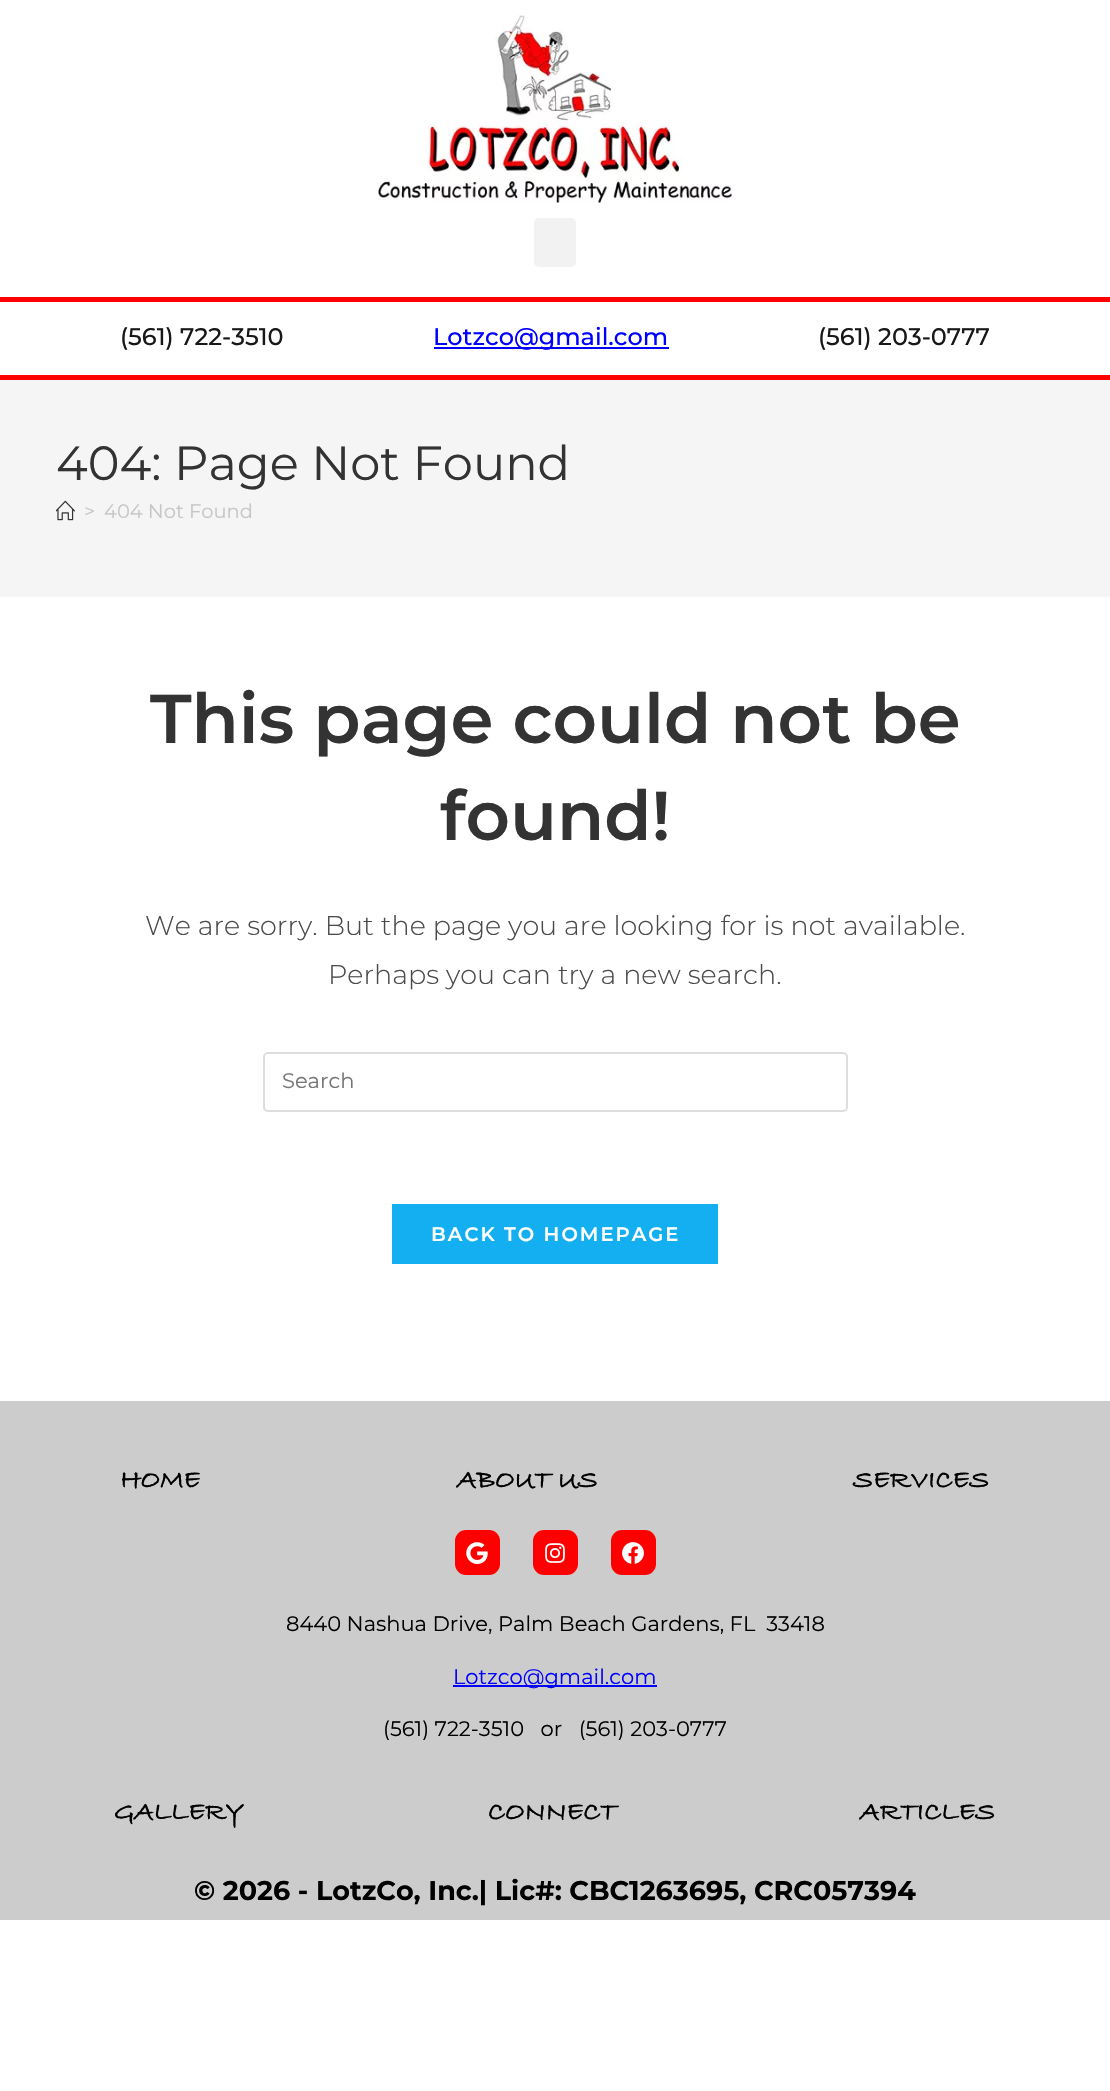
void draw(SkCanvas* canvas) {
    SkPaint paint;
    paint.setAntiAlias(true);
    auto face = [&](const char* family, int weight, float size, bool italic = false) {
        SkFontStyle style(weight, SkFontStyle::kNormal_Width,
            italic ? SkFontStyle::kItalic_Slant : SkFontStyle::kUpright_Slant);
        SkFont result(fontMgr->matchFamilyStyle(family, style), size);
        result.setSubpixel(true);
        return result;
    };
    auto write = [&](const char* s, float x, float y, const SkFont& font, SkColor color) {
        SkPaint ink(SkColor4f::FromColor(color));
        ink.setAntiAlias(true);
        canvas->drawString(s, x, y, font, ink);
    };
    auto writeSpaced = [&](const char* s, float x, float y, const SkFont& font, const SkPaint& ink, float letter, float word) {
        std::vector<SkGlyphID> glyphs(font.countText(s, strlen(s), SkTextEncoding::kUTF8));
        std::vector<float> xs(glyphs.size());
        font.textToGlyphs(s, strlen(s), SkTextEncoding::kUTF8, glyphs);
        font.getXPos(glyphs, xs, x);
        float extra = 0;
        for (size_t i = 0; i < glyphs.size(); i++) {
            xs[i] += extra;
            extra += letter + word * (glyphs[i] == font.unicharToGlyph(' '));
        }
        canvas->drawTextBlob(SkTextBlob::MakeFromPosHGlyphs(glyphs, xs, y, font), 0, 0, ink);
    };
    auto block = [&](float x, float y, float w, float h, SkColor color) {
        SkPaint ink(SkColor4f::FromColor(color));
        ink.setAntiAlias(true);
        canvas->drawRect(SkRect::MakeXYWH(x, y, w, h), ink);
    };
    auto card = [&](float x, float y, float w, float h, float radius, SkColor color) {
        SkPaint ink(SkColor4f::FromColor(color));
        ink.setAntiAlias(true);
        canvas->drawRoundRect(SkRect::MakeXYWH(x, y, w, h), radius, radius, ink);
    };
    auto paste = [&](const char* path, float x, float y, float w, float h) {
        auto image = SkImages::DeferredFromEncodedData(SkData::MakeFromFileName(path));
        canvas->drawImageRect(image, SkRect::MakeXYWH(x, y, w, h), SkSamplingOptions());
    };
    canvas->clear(SK_ColorWHITE);
    paste("pic1.png", 378, 15, 354, 188);
    card(534, 218, 42, 49, 5, SkColorSetRGB(242, 242, 242));
    block(0, 297, 1110, 5, SkColorSetRGB(255, 0, 0));
    block(0, 375, 1110, 5, SkColorSetRGB(255, 0, 0));
    auto kFont1 = face("Montserrat", 500, 24);
    write("(561) 722-3510", 120, 345, kFont1, SkColorSetRGB(24, 24, 24));
    block(434, 347, 235, 2, SkColorSetRGB(0, 0, 255));
    write("Lotzco@gmail.com", 433, 345, kFont1, SkColorSetRGB(0, 0, 255));
    write("(561) 203-0777", 818, 345, kFont1, SkColorSetRGB(24, 24, 24));
    block(0, 380, 1110, 217, SkColorSetRGB(245, 245, 245));
    auto kFont2 = face("Montserrat", 400, 48);
    write("404: Page Not Found", 56, 480, kFont2, SkColorSetRGB(51, 51, 51));
    paste("pic2.png", 56, 500, 19, 21);
    auto kFont3 = face("Montserrat", 400, 19.5f);
    write(">", 84, 518, kFont3, SkColorSetRGB(198, 198, 198));
    write("404 Not Found", 104, 518, kFont3, SkColorSetRGB(198, 198, 198));
    auto kFont4 = face("Montserrat", 600, 69);
    write("This page could not be", 150, 743, kFont4, SkColorSetRGB(51, 51, 51));
    write("found!", 440, 840, kFont4, SkColorSetRGB(51, 51, 51));
    auto kFont5 = face("Montserrat", 300, 27);
    write("We are sorry. But the page you are looking for is not available.", 145, 935, kFont5, SkColorSetRGB(74, 74, 74));
    write("Perhaps you can try a new search.", 328, 984, kFont5, SkColorSetRGB(74, 74, 74));
    paint.setStyle(SkPaint::kStroke_Style);
    paint.setStrokeWidth(2);
    paint.setColor(SkColorSetRGB(221, 221, 221));
    canvas->drawRoundRect(SkRect::MakeXYWH(264, 1053, 583, 58), 4, 4, paint);
    auto kFont6 = face("Montserrat", 400, 21);
    write("Search", 282, 1088, kFont6, SkColorSetRGB(117, 117, 117));
    block(392, 1204, 326, 60, SkColorSetRGB(19, 175, 240));
    auto kFont7 = face("Montserrat", 600, 19.5f);
    paint.setStyle(SkPaint::kFill_Style);
    paint.setColor(SK_ColorWHITE);
    writeSpaced("BACK TO HOMEPAGE", 431, 1241, kFont7, paint, 2, 0);
    block(0, 1401, 1110, 519, SkColorSetRGB(204, 204, 204));
    auto kFont8 = face("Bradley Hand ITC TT", 700, 27);
    write("HOME", 120, 1487, kFont8, SK_ColorBLACK);
    write("ABOUT US", 457, 1487, kFont8, SK_ColorBLACK);
    write("SERVICES", 853, 1487, kFont8, SK_ColorBLACK);
    card(455, 1530, 45, 45, 11, SkColorSetRGB(255, 0, 0));
    paste("pic3.png", 466, 1542, 22, 22);
    card(533, 1530, 45, 45, 11, SkColorSetRGB(255, 0, 0));
    paste("pic4.png", 545, 1543, 20, 20);
    card(611, 1530, 45, 45, 11, SkColorSetRGB(255, 0, 0));
    paste("pic5.png", 622, 1542, 22, 22);
    write("8440 Nashua Drive, Palm Beach Gardens, FL  33418", 286, 1631, kFont6, SK_ColorBLACK);
    block(453, 1685, 204, 2, SkColorSetRGB(0, 0, 255));
    write("Lotzco@gmail.com", 453, 1684, kFont6, SkColorSetRGB(0, 0, 255));
    write("(561) 722-3510   or   (561) 203-0777", 383, 1736, kFont6, SK_ColorBLACK);
    write("GALLERY", 114, 1819, kFont8, SK_ColorBLACK);
    write("CONNECT", 488, 1819, kFont8, SK_ColorBLACK);
    write("ARTICLES", 860, 1819, kFont8, SK_ColorBLACK);
    auto kFont9 = face("Montserrat", 700, 27);
    write("© 2026 - LotzCo, Inc.| Lic#: CBC1263695, CRC057394", 194, 1900, kFont9, SK_ColorBLACK);
}
